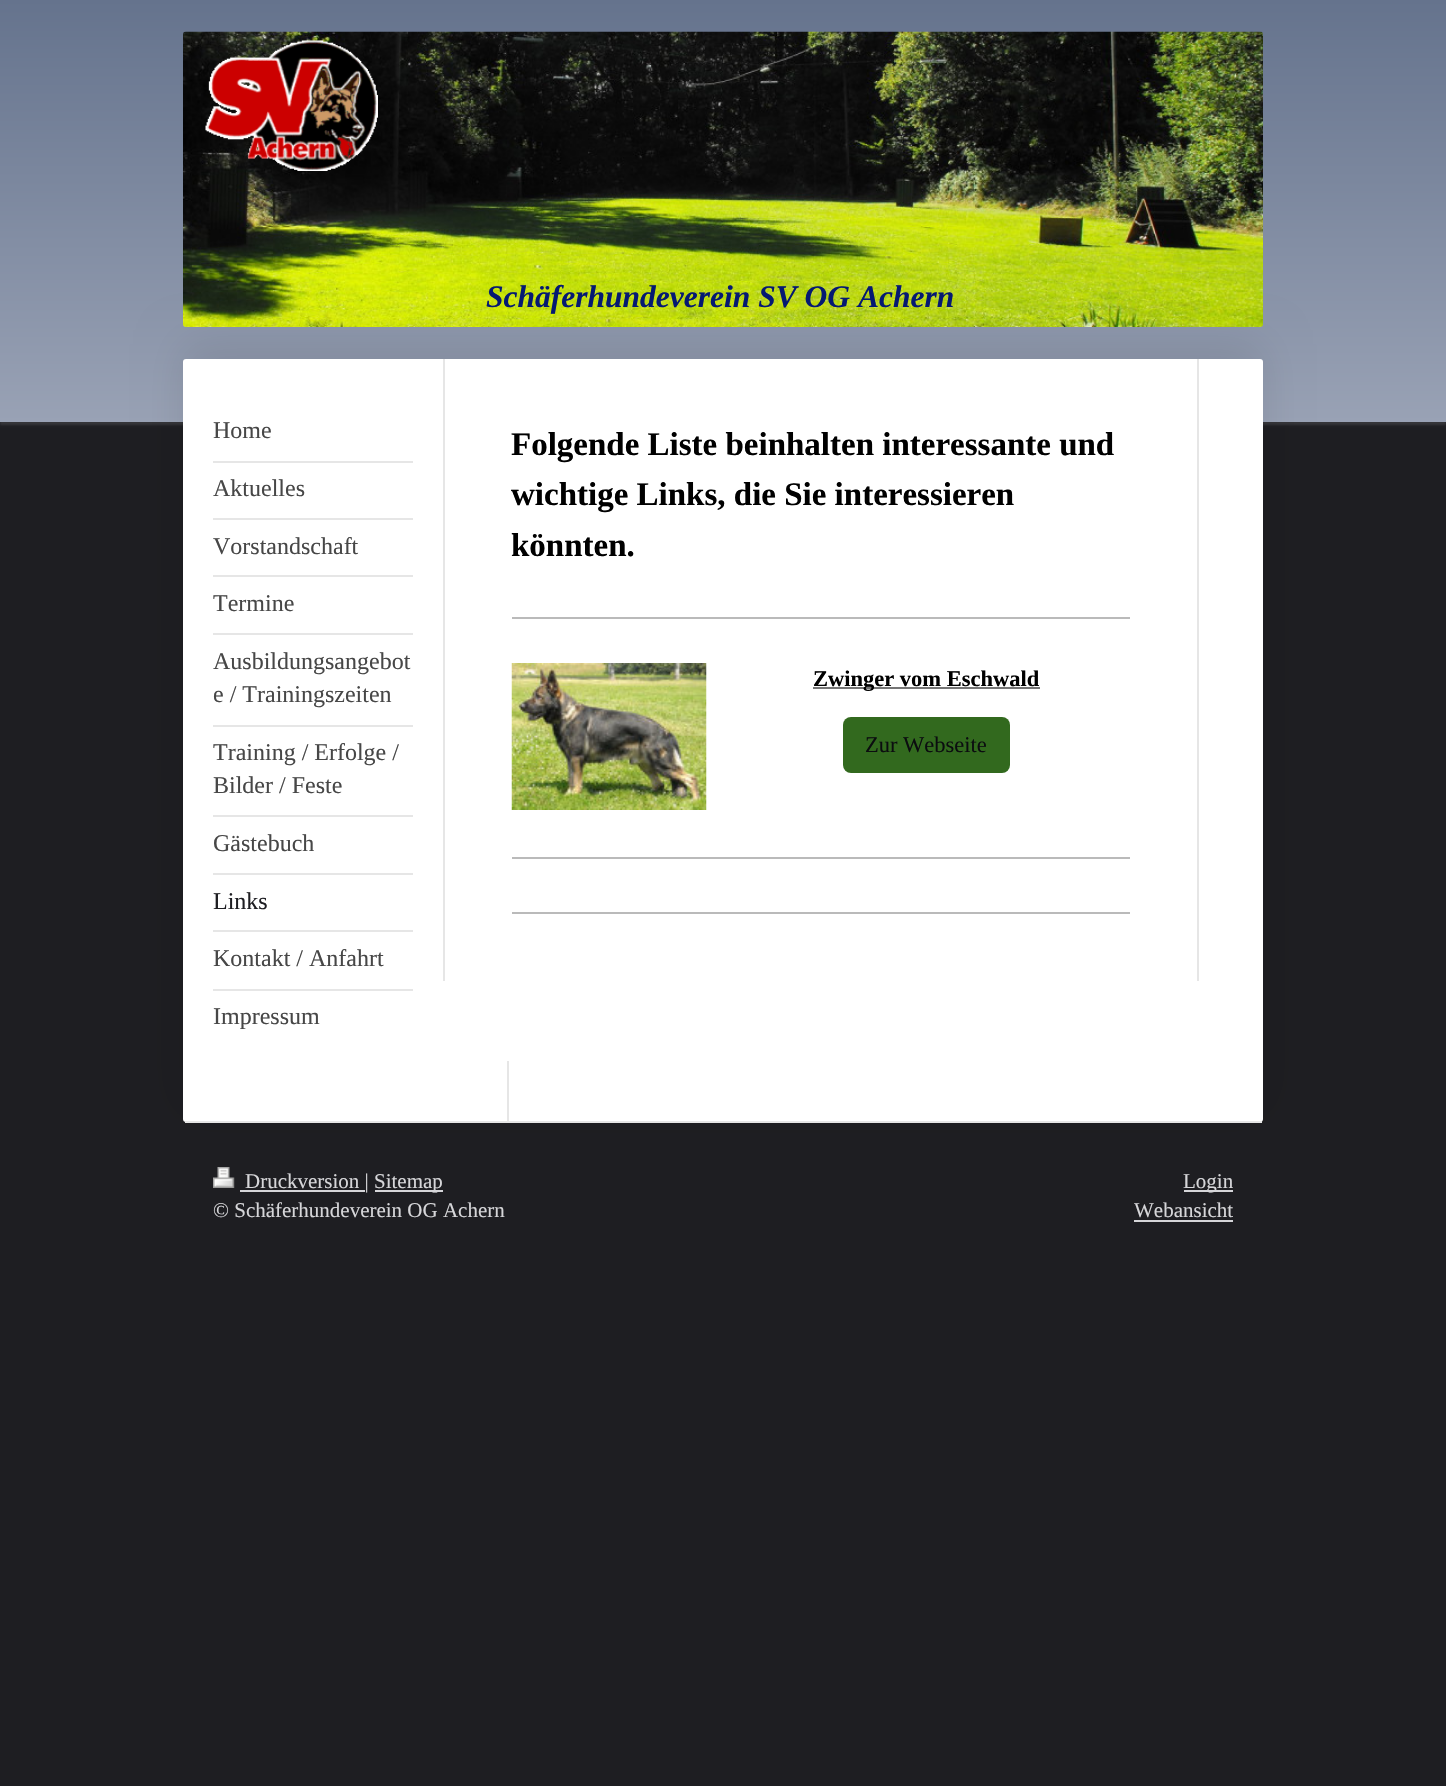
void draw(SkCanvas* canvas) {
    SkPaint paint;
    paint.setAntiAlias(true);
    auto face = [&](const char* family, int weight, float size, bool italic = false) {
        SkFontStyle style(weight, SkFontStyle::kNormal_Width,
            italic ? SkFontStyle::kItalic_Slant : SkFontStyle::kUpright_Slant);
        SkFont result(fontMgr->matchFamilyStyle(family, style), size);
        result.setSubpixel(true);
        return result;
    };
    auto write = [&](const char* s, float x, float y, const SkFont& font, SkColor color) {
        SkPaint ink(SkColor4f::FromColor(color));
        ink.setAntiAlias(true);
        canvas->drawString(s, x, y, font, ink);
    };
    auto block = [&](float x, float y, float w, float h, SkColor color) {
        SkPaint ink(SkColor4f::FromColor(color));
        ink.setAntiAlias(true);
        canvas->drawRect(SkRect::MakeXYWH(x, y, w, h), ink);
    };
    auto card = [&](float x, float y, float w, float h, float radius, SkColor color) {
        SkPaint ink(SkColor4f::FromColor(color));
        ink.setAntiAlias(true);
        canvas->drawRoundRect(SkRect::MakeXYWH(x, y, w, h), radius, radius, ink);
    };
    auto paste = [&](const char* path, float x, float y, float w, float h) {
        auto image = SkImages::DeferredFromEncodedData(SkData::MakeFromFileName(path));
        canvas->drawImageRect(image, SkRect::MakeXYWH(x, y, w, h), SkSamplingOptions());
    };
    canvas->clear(SkColorSetRGB(30, 30, 34));
    paint.setColor(SkColorSetARGB(26, 255, 255, 255));
    paint.setMaskFilter(SkMaskFilter::MakeBlur(kNormal_SkBlurStyle, 1));
    canvas->drawRect(SkRect::MakeXYWH(0, 3, 1446, 422), paint);
    paint.setMaskFilter(nullptr);
    {
        const SkColor colors[] = {SkColorSetRGB(153, 162, 181), SkColorSetRGB(101, 115, 141)};
        const float stops[] = {0, 1};
        const SkPoint ends[] = {{0, 422}, {0, 0}};
        paint.setShader(SkGradientShader::MakeLinear(ends, colors, stops, 2, SkTileMode::kClamp));
        paint.setAlpha(255);
    }
    canvas->drawRect(SkRect::MakeXYWH(0, 0, 1446, 422), paint);
    paste("pic1.png", 183, 31, 1080, 296);
    paste("pic2.png", 205, 40, 173, 131);
    paint.setShader(nullptr);
    paint.setColor(SkColorSetARGB(26, 0, 0, 0));
    paint.setMaskFilter(SkMaskFilter::MakeBlur(kNormal_SkBlurStyle, 22.5f));
    canvas->drawRoundRect(SkRect::MakeXYWH(183, 344, 1080, 763), 3, 3, paint);
    paint.setMaskFilter(nullptr);
    auto kFont1 = face("Liberation Serif", 700, 31.5f, true);
    write("Schäferhundeverein SV OG Achern", 486, 307, kFont1, SkColorSetRGB(5, 25, 114));
    card(183, 359, 1080, 763, 3, SK_ColorWHITE);
    block(185, 1121, 1077, 2, SkColorSetRGB(230, 230, 230));
    block(213, 461, 200, 2, SkColorSetRGB(230, 230, 230));
    auto kFont2 = face("Liberation Serif", 400, 24);
    write("Home", 213, 438, kFont2, SkColorSetRGB(71, 71, 71));
    block(213, 518, 200, 2, SkColorSetRGB(230, 230, 230));
    write("Aktuelles", 213, 496, kFont2, SkColorSetRGB(71, 71, 71));
    block(213, 575, 200, 2, SkColorSetRGB(230, 230, 230));
    write("Vorstandschaft", 213, 554, kFont2, SkColorSetRGB(71, 71, 71));
    block(213, 633, 200, 2, SkColorSetRGB(230, 230, 230));
    write("Termine", 213, 611, kFont2, SkColorSetRGB(71, 71, 71));
    block(213, 725, 200, 2, SkColorSetRGB(230, 230, 230));
    write("Ausbildungsangebot", 213, 669, kFont2, SkColorSetRGB(71, 71, 71));
    write("e / Trainingszeiten", 213, 702, kFont2, SkColorSetRGB(71, 71, 71));
    block(213, 815, 200, 2, SkColorSetRGB(230, 230, 230));
    write("Training / Erfolge /", 213, 760, kFont2, SkColorSetRGB(71, 71, 71));
    write("Bilder / Feste", 213, 793, kFont2, SkColorSetRGB(71, 71, 71));
    block(213, 873, 200, 2, SkColorSetRGB(230, 230, 230));
    write("Gästebuch", 213, 851, kFont2, SkColorSetRGB(71, 71, 71));
    block(213, 930, 200, 2, SkColorSetRGB(230, 230, 230));
    write("Links", 213, 909, kFont2, SkColorSetRGB(30, 30, 34));
    block(213, 989, 200, 2, SkColorSetRGB(230, 230, 230));
    write("Kontakt / Anfahrt", 213, 966, kFont2, SkColorSetRGB(71, 71, 71));
    write("Impressum", 213, 1024, kFont2, SkColorSetRGB(71, 71, 71));
    block(1197, 359, 2, 622, SkColorSetRGB(230, 230, 230));
    block(443, 359, 2, 622, SkColorSetRGB(230, 230, 230));
    auto kFont3 = face("Liberation Serif", 700, 33);
    write("Folgende Liste beinhalten interessante und", 511, 455, kFont3, SK_ColorBLACK);
    write("wichtige Links, die Sie interessieren", 511, 505, kFont3, SK_ColorBLACK);
    write("könnten.", 511, 556, kFont3, SK_ColorBLACK);
    block(512, 617, 618, 2, SkColorSetRGB(186, 186, 186));
    paste("pic3.png", 511, 663, 196, 147);
    block(813, 687, 227, 2, SkColorSetRGB(117, 117, 117));
    auto kFont4 = face("Liberation Serif", 700, 22.5f);
    write("Zwinger vom Eschwald", 813, 686, kFont4, SK_ColorBLACK);
    card(843, 717, 167, 56, 8, SkColorSetRGB(50, 105, 30));
    auto kFont5 = face("Liberation Serif", 400, 22.5f);
    write("Zur Webseite", 865, 752, kFont5, SkColorSetRGB(11, 13, 15));
    block(512, 857, 618, 2, SkColorSetRGB(186, 186, 186));
    block(512, 912, 618, 2, SkColorSetRGB(186, 186, 186));
    block(507, 1061, 2, 60, SkColorSetRGB(230, 230, 230));
    paste("pic4.png", 213, 1167, 22, 21);
    block(240, 1190, 125, 2, SkColorSetRGB(214, 214, 217));
    auto kFont6 = face("Liberation Serif", 400, 21);
    write("Druckversion |", 245, 1188, kFont6, SkColorSetRGB(214, 214, 217));
    block(375, 1190, 68, 2, SkColorSetRGB(214, 214, 217));
    write("Sitemap", 374, 1188, kFont6, SkColorSetRGB(214, 214, 217));
    write("© Schäferhundeverein OG Achern", 213, 1217, kFont6, SkColorSetRGB(214, 214, 217));
    block(1184, 1190, 49, 2, SkColorSetRGB(214, 214, 217));
    write("Login", 1183, 1188, kFont6, SkColorSetRGB(214, 214, 217));
    write("Webansicht", 1134, 1217, kFont6, SkColorSetRGB(214, 214, 217));
    block(1134, 1220, 99, 2, SkColorSetRGB(214, 214, 217));
}
